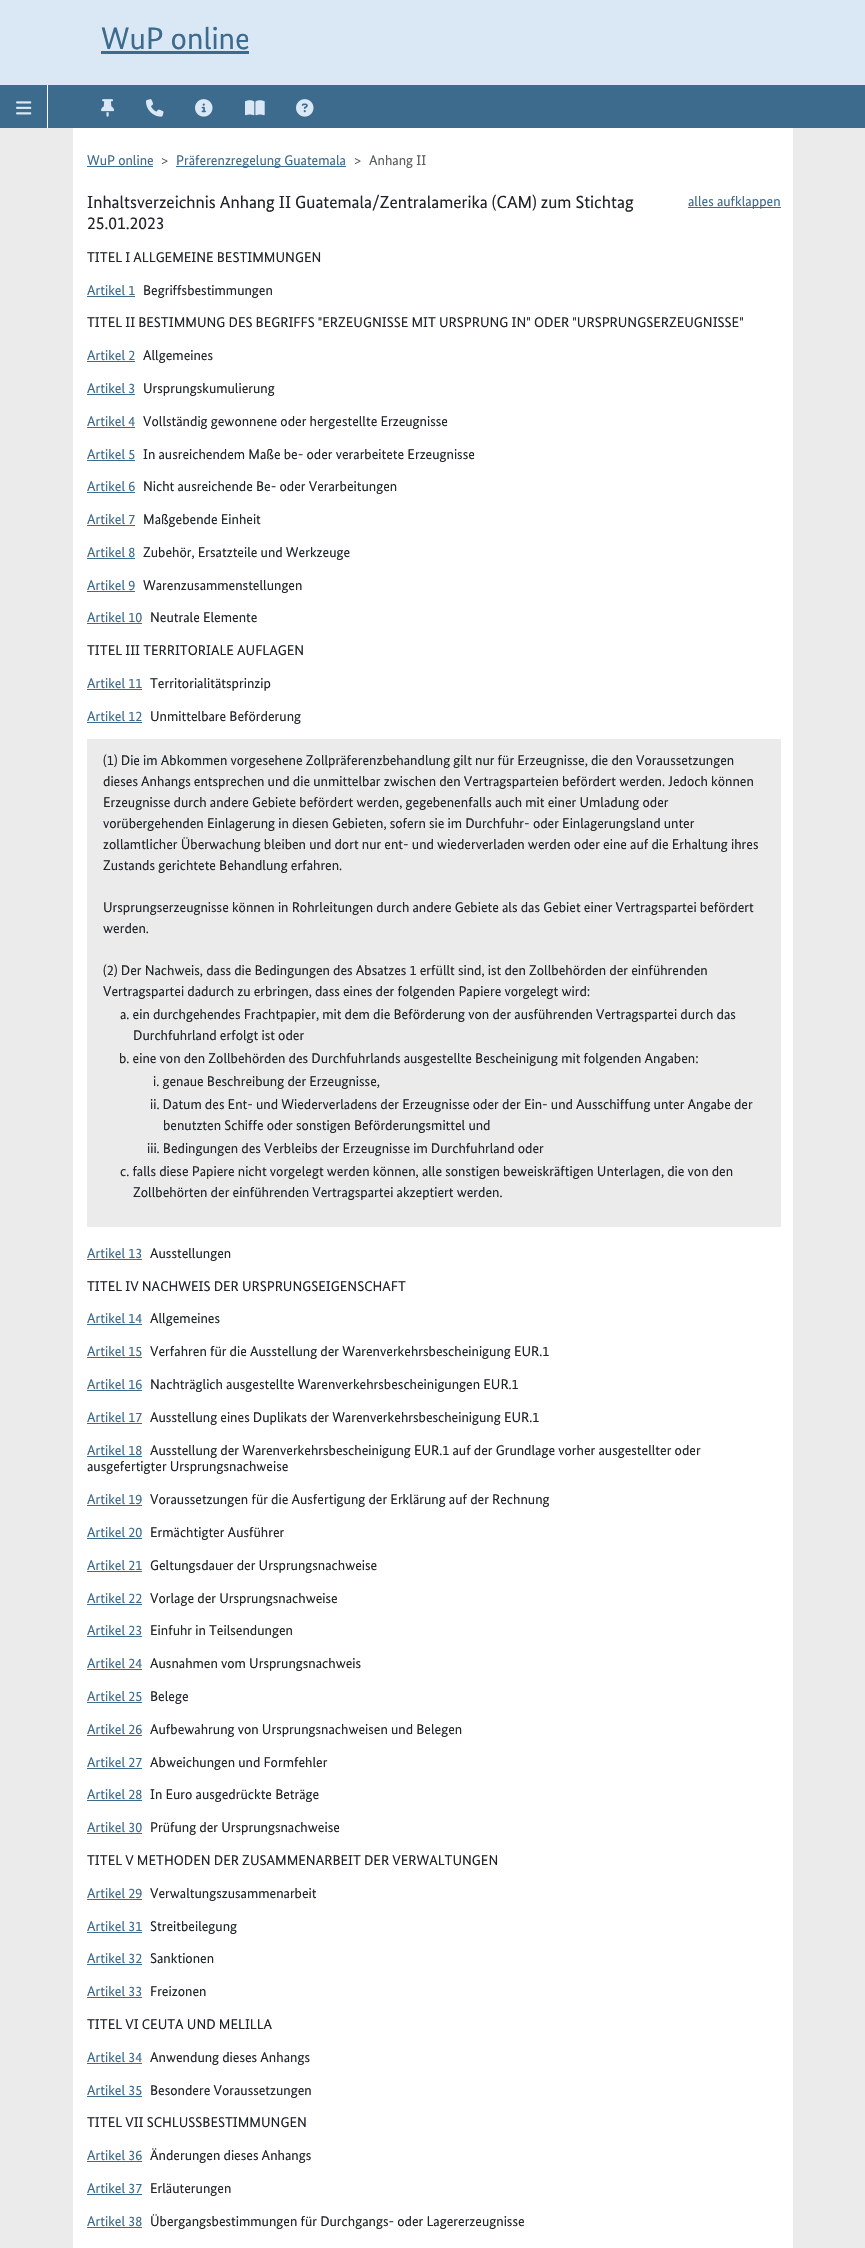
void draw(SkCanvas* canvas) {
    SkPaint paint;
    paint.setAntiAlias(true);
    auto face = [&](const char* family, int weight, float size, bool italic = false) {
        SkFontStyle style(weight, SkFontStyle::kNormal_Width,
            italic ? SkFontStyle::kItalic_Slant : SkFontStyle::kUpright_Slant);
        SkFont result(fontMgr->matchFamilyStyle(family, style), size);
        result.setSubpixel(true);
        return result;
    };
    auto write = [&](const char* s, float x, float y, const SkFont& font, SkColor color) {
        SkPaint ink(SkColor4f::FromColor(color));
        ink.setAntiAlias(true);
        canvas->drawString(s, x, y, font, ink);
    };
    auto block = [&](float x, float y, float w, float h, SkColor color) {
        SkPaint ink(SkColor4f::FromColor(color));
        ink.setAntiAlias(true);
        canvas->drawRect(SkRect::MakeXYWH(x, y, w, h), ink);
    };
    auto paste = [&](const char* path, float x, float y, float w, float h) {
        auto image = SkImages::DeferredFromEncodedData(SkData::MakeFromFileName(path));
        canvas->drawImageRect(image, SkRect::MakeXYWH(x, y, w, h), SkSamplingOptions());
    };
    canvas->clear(SkColorSetRGB(218, 232, 245));
    auto kFont1 = face("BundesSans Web", 400, 31.25f);
    write("WuP online", 101, 49, kFont1, SkColorSetRGB(61, 107, 141));
    block(101, 51, 148, 3, SkColorSetRGB(61, 107, 141));
    block(0, 85, 865, 43, SkColorSetRGB(61, 107, 141));
    block(47, 85, 1, 43, SK_ColorWHITE);
    paste("pic1.png", 16, 101, 16, 14);
    paste("pic2.png", 101, 99, 14, 18);
    paste("pic3.png", 146, 99, 18, 18);
    paste("pic4.png", 195, 99, 18, 18);
    paste("pic5.png", 245, 100, 20, 16);
    paste("pic6.png", 296, 99, 18, 18);
    block(0, 128, 865, 2120, SkColorSetRGB(235, 235, 235));
    block(73, 128, 720, 2120, SK_ColorWHITE);
    auto kFont2 = face("BundesSans Web", 400, 14);
    write("WuP online", 87, 165, kFont2, SkColorSetRGB(61, 107, 141));
    block(87, 166, 66, 1, SkColorSetRGB(61, 107, 141));
    write(">", 161, 165, kFont2, SkColorSetRGB(89, 92, 95));
    block(176, 166, 170, 1, SkColorSetRGB(61, 107, 141));
    write("Präferenzregelung Guatemala", 176, 165, kFont2, SkColorSetRGB(61, 107, 141));
    write(">", 354, 165, kFont2, SkColorSetRGB(89, 92, 95));
    write("Anhang II", 369, 165, kFont2, SkColorSetRGB(89, 92, 95));
    auto kFont3 = face("BundesSans Web", 400, 17.5f);
    write("Inhaltsverzeichnis Anhang II Guatemala/Zentralamerika (CAM) zum Stichtag", 87, 208, kFont3, SkColorSetRGB(33, 37, 41));
    write("25.01.2023", 87, 229, kFont3, SkColorSetRGB(33, 37, 41));
    block(688, 207, 93, 1, SkColorSetRGB(61, 107, 141));
    write("alles aufklappen", 688, 206, kFont2, SkColorSetRGB(61, 107, 141));
    write("TITEL I ALLGEMEINE BESTIMMUNGEN", 87, 262, kFont2, SkColorSetRGB(33, 37, 41));
    write("Artikel 1", 87, 295, kFont2, SkColorSetRGB(61, 107, 141));
    block(87, 296, 48, 1, SkColorSetRGB(61, 107, 141));
    write("Begriffsbestimmungen", 143, 295, kFont2, SkColorSetRGB(33, 37, 41));
    write("TITEL II BESTIMMUNG DES BEGRIFFS \"ERZEUGNISSE MIT URSPRUNG IN\" ODER \"URSPRUNGSERZEUGNISSE\"", 87, 327, kFont2, SkColorSetRGB(33, 37, 41));
    write("Artikel 2", 87, 360, kFont2, SkColorSetRGB(61, 107, 141));
    block(87, 361, 48, 1, SkColorSetRGB(61, 107, 141));
    write("Allgemeines", 143, 360, kFont2, SkColorSetRGB(33, 37, 41));
    write("Artikel 3", 87, 393, kFont2, SkColorSetRGB(61, 107, 141));
    block(87, 394, 48, 1, SkColorSetRGB(61, 107, 141));
    write("Ursprungskumulierung", 143, 393, kFont2, SkColorSetRGB(33, 37, 41));
    write("Artikel 4", 87, 426, kFont2, SkColorSetRGB(61, 107, 141));
    block(87, 427, 48, 1, SkColorSetRGB(61, 107, 141));
    write("Vollständig gewonnene oder hergestellte Erzeugnisse", 143, 426, kFont2, SkColorSetRGB(33, 37, 41));
    write("Artikel 5", 87, 459, kFont2, SkColorSetRGB(61, 107, 141));
    block(87, 460, 48, 1, SkColorSetRGB(61, 107, 141));
    write("In ausreichendem Maße be- oder verarbeitete Erzeugnisse", 143, 459, kFont2, SkColorSetRGB(33, 37, 41));
    write("Artikel 6", 87, 491, kFont2, SkColorSetRGB(61, 107, 141));
    block(87, 492, 48, 1, SkColorSetRGB(61, 107, 141));
    write("Nicht ausreichende Be- oder Verarbeitungen", 143, 491, kFont2, SkColorSetRGB(33, 37, 41));
    write("Artikel 7", 87, 524, kFont2, SkColorSetRGB(61, 107, 141));
    block(87, 525, 48, 1, SkColorSetRGB(61, 107, 141));
    write("Maßgebende Einheit", 143, 524, kFont2, SkColorSetRGB(33, 37, 41));
    write("Artikel 8", 87, 557, kFont2, SkColorSetRGB(61, 107, 141));
    block(87, 558, 48, 1, SkColorSetRGB(61, 107, 141));
    write("Zubehör, Ersatzteile und Werkzeuge", 143, 557, kFont2, SkColorSetRGB(33, 37, 41));
    write("Artikel 9", 87, 590, kFont2, SkColorSetRGB(61, 107, 141));
    block(87, 591, 48, 1, SkColorSetRGB(61, 107, 141));
    write("Warenzusammenstellungen", 143, 590, kFont2, SkColorSetRGB(33, 37, 41));
    write("Artikel 10", 87, 622, kFont2, SkColorSetRGB(61, 107, 141));
    block(87, 623, 55, 1, SkColorSetRGB(61, 107, 141));
    write("Neutrale Elemente", 150, 622, kFont2, SkColorSetRGB(33, 37, 41));
    write("TITEL III TERRITORIALE AUFLAGEN", 87, 655, kFont2, SkColorSetRGB(33, 37, 41));
    write("Artikel 11", 87, 688, kFont2, SkColorSetRGB(61, 107, 141));
    block(87, 689, 55, 1, SkColorSetRGB(61, 107, 141));
    write("Territorialitätsprinzip", 150, 688, kFont2, SkColorSetRGB(33, 37, 41));
    write("Artikel 12", 87, 721, kFont2, SkColorSetRGB(61, 107, 141));
    block(87, 722, 55, 1, SkColorSetRGB(61, 107, 141));
    write("Unmittelbare Beförderung", 150, 721, kFont2, SkColorSetRGB(33, 37, 41));
    block(87, 739, 694, 488, SkColorSetRGB(235, 235, 235));
    write("(1) Die im Abkommen vorgesehene Zollpräferenzbehandlung gilt nur für Erzeugnisse, die den Voraussetzungen", 103, 765, kFont2, SkColorSetRGB(33, 37, 41));
    write("dieses Anhangs entsprechen und die unmittelbar zwischen den Vertragsparteien befördert werden. Jedoch können", 103, 786, kFont2, SkColorSetRGB(33, 37, 41));
    write("Erzeugnisse durch andere Gebiete befördert werden, gegebenenfalls auch mit einer Umladung oder", 103, 807, kFont2, SkColorSetRGB(33, 37, 41));
    write("vorübergehenden Einlagerung in diesen Gebieten, sofern sie im Durchfuhr- oder Einlagerungsland unter", 103, 828, kFont2, SkColorSetRGB(33, 37, 41));
    write("zollamtlicher Überwachung bleiben und dort nur ent- und wiederverladen werden oder eine auf die Erhaltung ihres", 103, 849, kFont2, SkColorSetRGB(33, 37, 41));
    write("Zustands gerichtete Behandlung erfahren.", 103, 870, kFont2, SkColorSetRGB(33, 37, 41));
    write("Ursprungserzeugnisse können in Rohrleitungen durch andere Gebiete als das Gebiet einer Vertragspartei befördert", 103, 912, kFont2, SkColorSetRGB(33, 37, 41));
    write("werden.", 103, 933, kFont2, SkColorSetRGB(33, 37, 41));
    write("(2) Der Nachweis, dass die Bedingungen des Absatzes 1 erfüllt sind, ist den Zollbehörden der einführenden", 103, 975, kFont2, SkColorSetRGB(33, 37, 41));
    write("Vertragspartei dadurch zu erbringen, dass eines der folgenden Papiere vorgelegt wird:", 103, 996, kFont2, SkColorSetRGB(33, 37, 41));
    write("a. ein durchgehendes Frachtpapier, mit dem die Beförderung von der ausführenden Vertragspartei durch das", 120, 1019, kFont2, SkColorSetRGB(33, 37, 41));
    write("Durchfuhrland erfolgt ist oder", 133, 1040, kFont2, SkColorSetRGB(33, 37, 41));
    write("b. eine von den Zollbehörden des Durchfuhrlands ausgestellte Bescheinigung mit folgenden Angaben:", 119, 1063, kFont2, SkColorSetRGB(33, 37, 41));
    write("i. genaue Beschreibung der Erzeugnisse,", 153, 1086, kFont2, SkColorSetRGB(33, 37, 41));
    write("ii. Datum des Ent- und Wiederverladens der Erzeugnisse oder der Ein- und Ausschiffung unter Angabe der", 150, 1109, kFont2, SkColorSetRGB(33, 37, 41));
    write("benutzten Schiffe oder sonstigen Beförderungsmittel und", 163, 1130, kFont2, SkColorSetRGB(33, 37, 41));
    write("iii. Bedingungen des Verbleibs der Erzeugnisse im Durchfuhrland oder", 147, 1153, kFont2, SkColorSetRGB(33, 37, 41));
    write("c. falls diese Papiere nicht vorgelegt werden können, alle sonstigen beweiskräftigen Unterlagen, die von den", 120, 1176, kFont2, SkColorSetRGB(33, 37, 41));
    write("Zollbehörten der einführenden Vertragspartei akzeptiert werden.", 133, 1197, kFont2, SkColorSetRGB(33, 37, 41));
    write("Artikel 13", 87, 1258, kFont2, SkColorSetRGB(61, 107, 141));
    block(87, 1259, 55, 1, SkColorSetRGB(61, 107, 141));
    write("Ausstellungen", 150, 1258, kFont2, SkColorSetRGB(33, 37, 41));
    write("TITEL IV NACHWEIS DER URSPRUNGSEIGENSCHAFT", 87, 1291, kFont2, SkColorSetRGB(33, 37, 41));
    write("Artikel 14", 87, 1323, kFont2, SkColorSetRGB(61, 107, 141));
    block(87, 1324, 55, 1, SkColorSetRGB(61, 107, 141));
    write("Allgemeines", 150, 1323, kFont2, SkColorSetRGB(33, 37, 41));
    write("Artikel 15", 87, 1356, kFont2, SkColorSetRGB(61, 107, 141));
    block(87, 1357, 55, 1, SkColorSetRGB(61, 107, 141));
    write("Verfahren für die Ausstellung der Warenverkehrsbescheinigung EUR.1", 150, 1356, kFont2, SkColorSetRGB(33, 37, 41));
    write("Artikel 16", 87, 1389, kFont2, SkColorSetRGB(61, 107, 141));
    block(87, 1390, 55, 1, SkColorSetRGB(61, 107, 141));
    write("Nachträglich ausgestellte Warenverkehrsbescheinigungen EUR.1", 150, 1389, kFont2, SkColorSetRGB(33, 37, 41));
    write("Artikel 17", 87, 1422, kFont2, SkColorSetRGB(61, 107, 141));
    block(87, 1423, 55, 1, SkColorSetRGB(61, 107, 141));
    write("Ausstellung eines Duplikats der Warenverkehrsbescheinigung EUR.1", 150, 1422, kFont2, SkColorSetRGB(33, 37, 41));
    write("Artikel 18", 87, 1455, kFont2, SkColorSetRGB(61, 107, 141));
    block(87, 1456, 55, 1, SkColorSetRGB(61, 107, 141));
    write("Ausstellung der Warenverkehrsbescheinigung EUR.1 auf der Grundlage vorher ausgestellter oder", 150, 1455, kFont2, SkColorSetRGB(33, 37, 41));
    write("ausgefertigter Ursprungsnachweise", 87, 1471, kFont2, SkColorSetRGB(33, 37, 41));
    write("Artikel 19", 87, 1504, kFont2, SkColorSetRGB(61, 107, 141));
    block(87, 1505, 55, 1, SkColorSetRGB(61, 107, 141));
    write("Voraussetzungen für die Ausfertigung der Erklärung auf der Rechnung", 150, 1504, kFont2, SkColorSetRGB(33, 37, 41));
    write("Artikel 20", 87, 1537, kFont2, SkColorSetRGB(61, 107, 141));
    block(87, 1538, 55, 1, SkColorSetRGB(61, 107, 141));
    write("Ermächtigter Ausführer", 150, 1537, kFont2, SkColorSetRGB(33, 37, 41));
    write("Artikel 21", 87, 1570, kFont2, SkColorSetRGB(61, 107, 141));
    block(87, 1571, 55, 1, SkColorSetRGB(61, 107, 141));
    write("Geltungsdauer der Ursprungsnachweise", 150, 1570, kFont2, SkColorSetRGB(33, 37, 41));
    write("Artikel 22", 87, 1603, kFont2, SkColorSetRGB(61, 107, 141));
    block(87, 1604, 55, 1, SkColorSetRGB(61, 107, 141));
    write("Vorlage der Ursprungsnachweise", 150, 1603, kFont2, SkColorSetRGB(33, 37, 41));
    write("Artikel 23", 87, 1635, kFont2, SkColorSetRGB(61, 107, 141));
    block(87, 1636, 55, 1, SkColorSetRGB(61, 107, 141));
    write("Einfuhr in Teilsendungen", 150, 1635, kFont2, SkColorSetRGB(33, 37, 41));
    write("Artikel 24", 87, 1668, kFont2, SkColorSetRGB(61, 107, 141));
    block(87, 1669, 55, 1, SkColorSetRGB(61, 107, 141));
    write("Ausnahmen vom Ursprungsnachweis", 150, 1668, kFont2, SkColorSetRGB(33, 37, 41));
    write("Artikel 25", 87, 1701, kFont2, SkColorSetRGB(61, 107, 141));
    block(87, 1702, 55, 1, SkColorSetRGB(61, 107, 141));
    write("Belege", 150, 1701, kFont2, SkColorSetRGB(33, 37, 41));
    write("Artikel 26", 87, 1734, kFont2, SkColorSetRGB(61, 107, 141));
    block(87, 1735, 55, 1, SkColorSetRGB(61, 107, 141));
    write("Aufbewahrung von Ursprungsnachweisen und Belegen", 150, 1734, kFont2, SkColorSetRGB(33, 37, 41));
    write("Artikel 27", 87, 1767, kFont2, SkColorSetRGB(61, 107, 141));
    block(87, 1768, 55, 1, SkColorSetRGB(61, 107, 141));
    write("Abweichungen und Formfehler", 150, 1767, kFont2, SkColorSetRGB(33, 37, 41));
    write("Artikel 28", 87, 1799, kFont2, SkColorSetRGB(61, 107, 141));
    block(87, 1800, 55, 1, SkColorSetRGB(61, 107, 141));
    write("In Euro ausgedrückte Beträge", 150, 1799, kFont2, SkColorSetRGB(33, 37, 41));
    write("Artikel 30", 87, 1832, kFont2, SkColorSetRGB(61, 107, 141));
    block(87, 1833, 55, 1, SkColorSetRGB(61, 107, 141));
    write("Prüfung der Ursprungsnachweise", 150, 1832, kFont2, SkColorSetRGB(33, 37, 41));
    write("TITEL V METHODEN DER ZUSAMMENARBEIT DER VERWALTUNGEN", 87, 1865, kFont2, SkColorSetRGB(33, 37, 41));
    write("Artikel 29", 87, 1898, kFont2, SkColorSetRGB(61, 107, 141));
    block(87, 1899, 55, 1, SkColorSetRGB(61, 107, 141));
    write("Verwaltungszusammenarbeit", 150, 1898, kFont2, SkColorSetRGB(33, 37, 41));
    write("Artikel 31", 87, 1931, kFont2, SkColorSetRGB(61, 107, 141));
    block(87, 1932, 55, 1, SkColorSetRGB(61, 107, 141));
    write("Streitbeilegung", 150, 1931, kFont2, SkColorSetRGB(33, 37, 41));
    write("Artikel 32", 87, 1963, kFont2, SkColorSetRGB(61, 107, 141));
    block(87, 1964, 55, 1, SkColorSetRGB(61, 107, 141));
    write("Sanktionen", 150, 1963, kFont2, SkColorSetRGB(33, 37, 41));
    write("Artikel 33", 87, 1996, kFont2, SkColorSetRGB(61, 107, 141));
    block(87, 1997, 55, 1, SkColorSetRGB(61, 107, 141));
    write("Freizonen", 150, 1996, kFont2, SkColorSetRGB(33, 37, 41));
    write("TITEL VI CEUTA UND MELILLA", 87, 2029, kFont2, SkColorSetRGB(33, 37, 41));
    write("Artikel 34", 87, 2062, kFont2, SkColorSetRGB(61, 107, 141));
    block(87, 2063, 55, 1, SkColorSetRGB(61, 107, 141));
    write("Anwendung dieses Anhangs", 150, 2062, kFont2, SkColorSetRGB(33, 37, 41));
    write("Artikel 35", 87, 2095, kFont2, SkColorSetRGB(61, 107, 141));
    block(87, 2096, 55, 1, SkColorSetRGB(61, 107, 141));
    write("Besondere Voraussetzungen", 150, 2095, kFont2, SkColorSetRGB(33, 37, 41));
    write("TITEL VII SCHLUSSBESTIMMUNGEN", 87, 2127, kFont2, SkColorSetRGB(33, 37, 41));
    write("Artikel 36", 87, 2160, kFont2, SkColorSetRGB(61, 107, 141));
    block(87, 2161, 55, 1, SkColorSetRGB(61, 107, 141));
    write("Änderungen dieses Anhangs", 150, 2160, kFont2, SkColorSetRGB(33, 37, 41));
    write("Artikel 37", 87, 2193, kFont2, SkColorSetRGB(61, 107, 141));
    block(87, 2194, 55, 1, SkColorSetRGB(61, 107, 141));
    write("Erläuterungen", 150, 2193, kFont2, SkColorSetRGB(33, 37, 41));
    write("Artikel 38", 87, 2226, kFont2, SkColorSetRGB(61, 107, 141));
    block(87, 2227, 55, 1, SkColorSetRGB(61, 107, 141));
    write("Übergangsbestimmungen für Durchgangs- oder Lagererzeugnisse", 150, 2226, kFont2, SkColorSetRGB(33, 37, 41));
}
